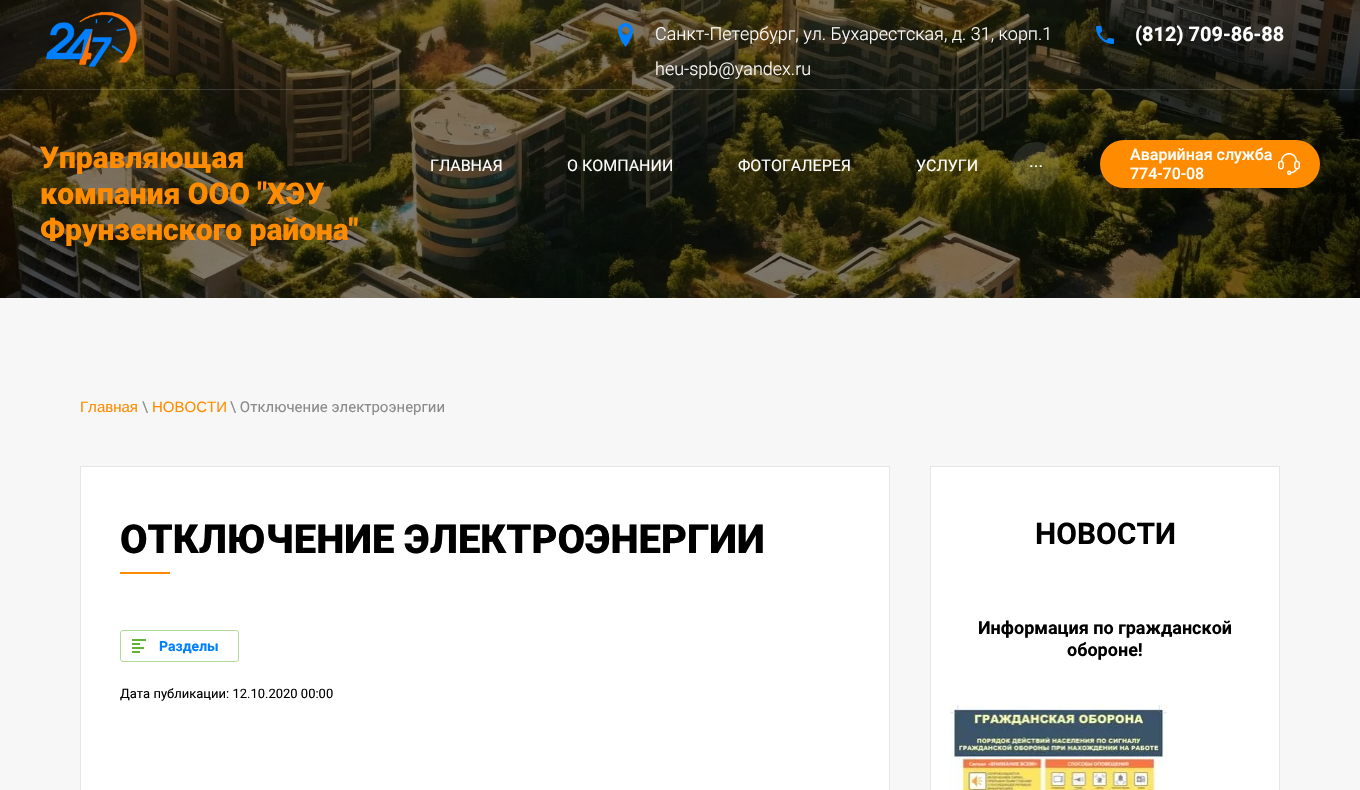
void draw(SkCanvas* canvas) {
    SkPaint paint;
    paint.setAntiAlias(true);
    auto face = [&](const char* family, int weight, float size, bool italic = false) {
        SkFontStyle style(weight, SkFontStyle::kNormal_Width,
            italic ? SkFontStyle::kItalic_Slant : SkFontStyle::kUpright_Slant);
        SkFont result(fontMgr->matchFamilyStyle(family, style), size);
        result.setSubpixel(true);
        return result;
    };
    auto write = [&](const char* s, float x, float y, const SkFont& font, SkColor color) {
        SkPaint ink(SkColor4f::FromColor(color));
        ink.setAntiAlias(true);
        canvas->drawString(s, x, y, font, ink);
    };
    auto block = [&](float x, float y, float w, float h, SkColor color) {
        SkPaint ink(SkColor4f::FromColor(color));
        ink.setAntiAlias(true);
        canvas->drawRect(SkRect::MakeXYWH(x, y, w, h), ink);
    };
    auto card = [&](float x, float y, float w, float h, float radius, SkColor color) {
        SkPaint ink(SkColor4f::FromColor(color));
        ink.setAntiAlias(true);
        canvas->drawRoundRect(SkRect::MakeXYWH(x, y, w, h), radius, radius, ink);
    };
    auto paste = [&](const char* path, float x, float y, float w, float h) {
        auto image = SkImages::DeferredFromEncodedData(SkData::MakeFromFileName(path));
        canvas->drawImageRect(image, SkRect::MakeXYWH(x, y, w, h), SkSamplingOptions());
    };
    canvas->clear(SkColorSetRGB(247, 247, 247));
    paste("pic1.png", 0, 0, 1360, 298);
    block(0, 89, 1360, 1, SkColorSetARGB(38, 255, 255, 255));
    paste("pic2.png", 45, 11, 92, 56);
    paste("pic3.png", 618, 23, 15, 24);
    auto kFont1 = face("Roboto", 300, 18);
    write("Санкт-Петербург, ул. Бухарестская, д. 31, корп.1", 655, 40, kFont1, SK_ColorWHITE);
    write("heu-spb@yandex.ru", 655, 75, kFont1, SK_ColorWHITE);
    paste("pic4.png", 1096, 26, 18, 18);
    auto kFont2 = face("Roboto", 700, 20);
    write("(812) 709-86-88", 1135, 41, kFont2, SK_ColorWHITE);
    auto kFont3 = face("Roboto", 900, 30);
    write("Управляющая", 40, 168, kFont3, SkColorSetRGB(255, 140, 0));
    write("компания ООО \"ХЭУ", 40, 204, kFont3, SkColorSetRGB(255, 140, 0));
    write("Фрунзенского района\"", 40, 240, kFont3, SkColorSetRGB(255, 140, 0));
    auto kFont4 = face("Roboto", 400, 16);
    write("ГЛАВНАЯ", 430, 171, kFont4, SK_ColorWHITE);
    write("О КОМПАНИИ", 567, 171, kFont4, SK_ColorWHITE);
    write("ФОТОГАЛЕРЕЯ", 738, 171, kFont4, SK_ColorWHITE);
    write("УСЛУГИ", 916, 171, kFont4, SK_ColorWHITE);
    paint.setColor(SkColorSetARGB(26, 255, 255, 255));
    canvas->drawCircle(1036, 166, 24, paint);
    auto kFont5 = face("Roboto", 400, 18);
    write("...", 1029, 167, kFont5, SK_ColorWHITE);
    card(1100, 140, 220, 48, 24, SkColorSetRGB(255, 140, 0));
    paste("pic5.png", 1278, 153, 22, 22);
    auto kFont6 = face("Roboto", 500, 16);
    write("Аварийная служба", 1130, 160, kFont6, SK_ColorWHITE);
    write("774-70-08", 1130, 179, kFont6, SK_ColorWHITE);
    auto kFont7 = face("Liberation Sans", 400, 15);
    write("Главная", 80, 412, kFont7, SkColorSetRGB(255, 140, 0));
    auto kFont8 = face("Roboto", 400, 15);
    write("\\", 142, 412, kFont8, SkColorSetRGB(138, 138, 138));
    write("НОВОСТИ", 152, 412, kFont7, SkColorSetRGB(255, 140, 0));
    write("\\ Отключение электроэнергии", 230, 412, kFont8, SkColorSetRGB(138, 138, 138));
    paint.setColor(SK_ColorWHITE);
    canvas->drawRect(SkRect::MakeXYWH(80.5f, 466.5f, 809, 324), paint);
    paint.setStyle(SkPaint::kStroke_Style);
    paint.setStrokeWidth(1);
    paint.setColor(SkColorSetRGB(230, 230, 230));
    canvas->drawRect(SkRect::MakeXYWH(80.5f, 466.5f, 809, 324), paint);
    block(120, 572, 50, 2, SkColorSetRGB(255, 140, 0));
    auto kFont9 = face("Roboto", 900, 40);
    write("ОТКЛЮЧЕНИЕ ЭЛЕКТРОЭНЕРГИИ", 120, 553, kFont9, SK_ColorBLACK);
    paint.setColor(SkColorSetRGB(177, 218, 154));
    canvas->drawRoundRect(SkRect::MakeXYWH(120.5f, 630.5f, 118, 31), 2.5f, 2.5f, paint);
    paste("pic6.png", 132, 639, 14, 14);
    auto kFont10 = face("Roboto", 700, 14);
    write("Разделы", 159, 651, kFont10, SkColorSetRGB(0, 128, 255));
    auto kFont11 = face("Roboto", 400, 13);
    write("Дата публикации: 12.10.2020 00:00", 120, 698, kFont11, SK_ColorBLACK);
    paint.setStyle(SkPaint::kFill_Style);
    paint.setColor(SK_ColorWHITE);
    canvas->drawRect(SkRect::MakeXYWH(930.5f, 466.5f, 349, 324), paint);
    paint.setStyle(SkPaint::kStroke_Style);
    paint.setColor(SkColorSetRGB(230, 230, 230));
    canvas->drawRect(SkRect::MakeXYWH(930.5f, 466.5f, 349, 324), paint);
    auto kFont12 = face("Roboto", 700, 30);
    write("НОВОСТИ", 1035, 544, kFont12, SK_ColorBLACK);
    auto kFont13 = face("Roboto", 700, 18);
    write("Информация по гражданской", 978, 634, kFont13, SK_ColorBLACK);
    write("обороне!", 1067, 656, kFont13, SK_ColorBLACK);
    paste("pic7.png", 950, 705, 217, 85);
}
